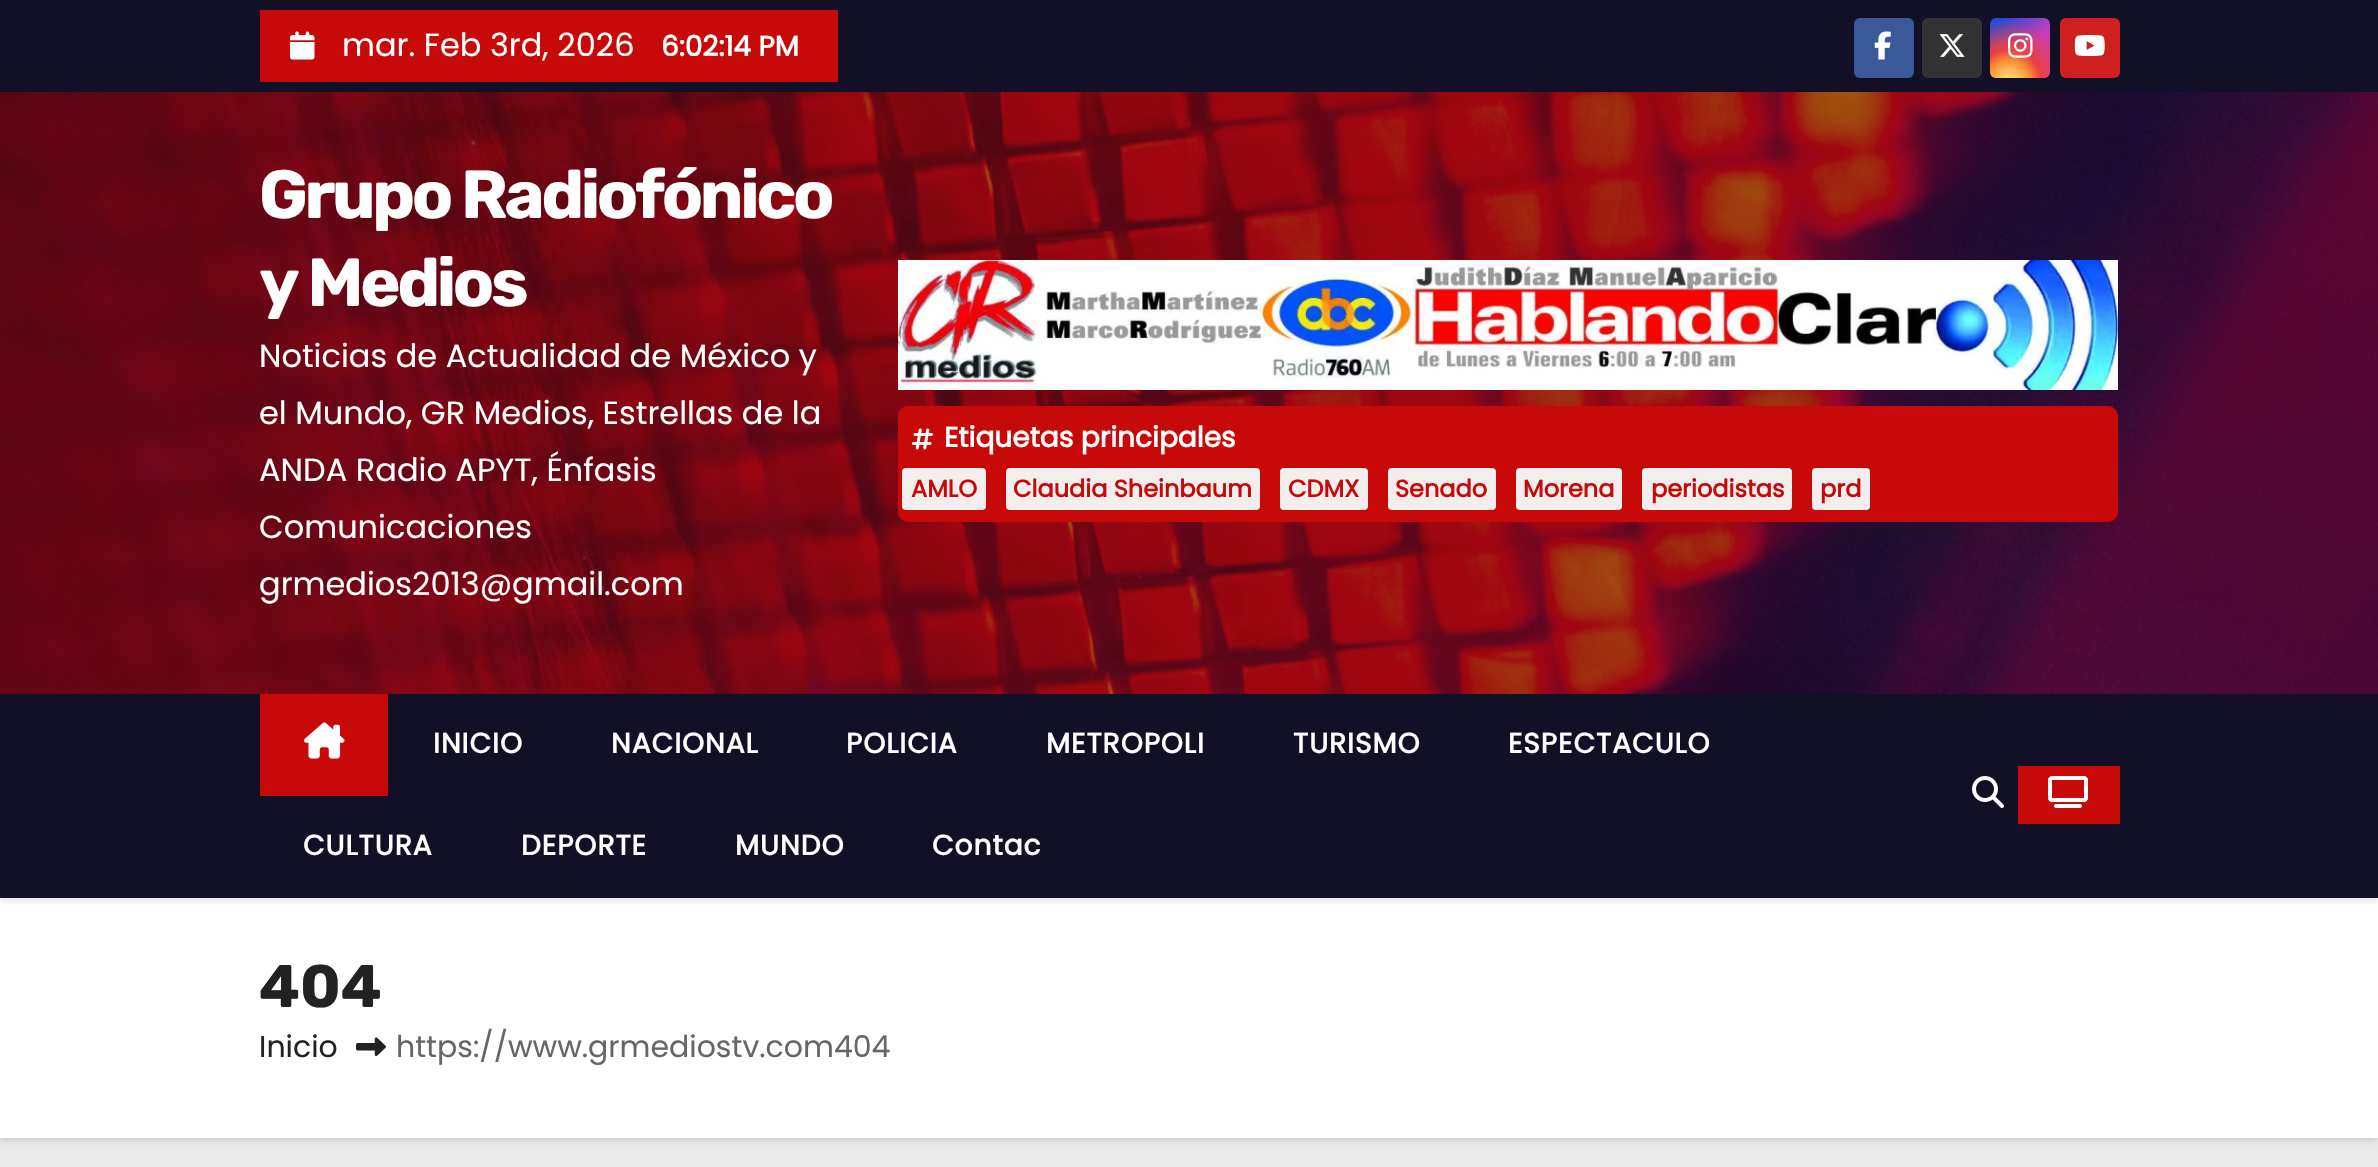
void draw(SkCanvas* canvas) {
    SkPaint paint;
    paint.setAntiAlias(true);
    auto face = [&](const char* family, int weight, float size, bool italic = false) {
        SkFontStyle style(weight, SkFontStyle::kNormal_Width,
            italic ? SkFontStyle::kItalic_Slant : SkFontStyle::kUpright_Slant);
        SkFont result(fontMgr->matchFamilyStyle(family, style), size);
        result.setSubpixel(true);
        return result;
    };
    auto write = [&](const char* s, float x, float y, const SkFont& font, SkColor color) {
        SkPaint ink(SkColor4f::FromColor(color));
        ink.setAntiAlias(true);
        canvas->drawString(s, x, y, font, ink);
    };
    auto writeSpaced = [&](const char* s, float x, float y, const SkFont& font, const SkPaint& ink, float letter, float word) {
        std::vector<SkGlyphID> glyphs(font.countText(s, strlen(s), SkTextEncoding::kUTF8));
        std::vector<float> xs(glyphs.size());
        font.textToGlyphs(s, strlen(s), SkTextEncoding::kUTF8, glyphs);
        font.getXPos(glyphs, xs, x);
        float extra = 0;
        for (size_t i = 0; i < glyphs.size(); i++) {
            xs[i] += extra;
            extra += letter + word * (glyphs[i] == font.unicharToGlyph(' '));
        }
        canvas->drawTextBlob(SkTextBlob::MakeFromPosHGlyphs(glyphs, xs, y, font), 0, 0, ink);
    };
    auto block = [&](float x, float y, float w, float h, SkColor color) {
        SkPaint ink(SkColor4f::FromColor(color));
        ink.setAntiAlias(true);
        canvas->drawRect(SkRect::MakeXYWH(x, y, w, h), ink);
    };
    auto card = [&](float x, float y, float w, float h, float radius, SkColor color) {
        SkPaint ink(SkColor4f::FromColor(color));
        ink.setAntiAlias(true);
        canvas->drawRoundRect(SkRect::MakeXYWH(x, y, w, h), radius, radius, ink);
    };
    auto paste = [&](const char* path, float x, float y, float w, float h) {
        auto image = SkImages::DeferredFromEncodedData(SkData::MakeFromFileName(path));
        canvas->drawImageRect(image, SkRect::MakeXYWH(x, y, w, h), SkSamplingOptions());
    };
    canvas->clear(SkColorSetRGB(234, 234, 234));
    block(0, 0, 2378, 92, SkColorSetRGB(18, 16, 38));
    block(260, 10, 578, 72, SkColorSetRGB(199, 9, 9));
    paste("pic1.png", 290, 31, 25, 29);
    auto kFont1 = face("Poppins", 400, 32);
    write("mar. Feb 3rd, 2026", 342, 56, kFont1, SK_ColorWHITE);
    auto kFont2 = face("Poppins", 700, 28);
    write("6:02:14 PM", 661, 56, kFont2, SK_ColorWHITE);
    card(1854, 18, 60, 60, 6, SkColorSetRGB(59, 89, 152));
    paste("pic2.png", 1874, 31, 17, 29);
    card(1922, 18, 60, 60, 6, SkColorSetRGB(51, 51, 51));
    paste("pic3.png", 1939, 34, 26, 23);
    {
        const SkColor colors[] = {SkColorSetRGB(35, 75, 215), SkColorSetRGB(195, 60, 190)};
        const float stops[] = {0.12f, 0.58f};
        const SkPoint ends[] = {{1990, 18}, {2050, 78}};
        paint.setShader(SkGradientShader::MakeLinear(ends, colors, stops, 2, SkTileMode::kClamp));
        paint.setAlpha(255);
    }
    canvas->drawRoundRect(SkRect::MakeXYWH(1990, 18, 60, 60), 6, 6, paint);
    {
        const SkColor colors[] = {SkColorSetRGB(255, 225, 125), SkColorSetRGB(255, 205, 105), SkColorSetRGB(250, 145, 55), SkColorSetRGB(235, 65, 65), SkColorSetARGB(0, 235, 65, 65)};
        const float stops[] = {0, 0.1f, 0.28f, 0.42f, 0.82f};
        paint.setShader(SkGradientShader::MakeRadial({2009, 82}, 76, colors, stops, 5, SkTileMode::kClamp));
        paint.setAlpha(255);
    }
    canvas->drawRoundRect(SkRect::MakeXYWH(1990, 18, 60, 60), 6, 6, paint);
    paste("pic4.png", 2008, 33, 25, 25);
    card(2060, 18, 60, 60, 6, SkColorSetRGB(205, 32, 31));
    paste("pic5.png", 2074, 35, 31, 21);
    paste("pic6.png", 0, 92, 2378, 602);
    auto kFont3 = face("Rubik", 700, 68);
    paint.setShader(nullptr);
    paint.setColor(SK_ColorWHITE);
    writeSpaced("Grupo Radiofónico", 259, 218, kFont3, paint, -3.4f, 0);
    writeSpaced("y Medios", 259, 306, kFont3, paint, -3.4f, 0);
    write("Noticias de Actualidad de México y", 259, 367, kFont1, SK_ColorWHITE);
    write("el Mundo, GR Medios, Estrellas de la", 259, 424, kFont1, SK_ColorWHITE);
    write("ANDA Radio APYT, Énfasis", 259, 481, kFont1, SK_ColorWHITE);
    write("Comunicaciones", 259, 538, kFont1, SK_ColorWHITE);
    write("grmedios2013@gmail.com", 259, 595, kFont1, SK_ColorWHITE);
    paste("pic7.png", 898, 260, 1220, 130);
    card(898, 406, 1220, 116, 10, SkColorSetRGB(199, 9, 9));
    paste("pic8.png", 912, 428, 21, 22);
    write("Etiquetas principales", 944, 447, kFont2, SK_ColorWHITE);
    card(902, 468, 84, 42, 4, SkColorSetRGB(243, 238, 238));
    auto kFont4 = face("Poppins", 700, 24);
    write("AMLO", 911, 497, kFont4, SkColorSetRGB(199, 9, 9));
    card(1006, 468, 254, 42, 4, SkColorSetRGB(243, 238, 238));
    write("Claudia Sheinbaum", 1013, 497, kFont4, SkColorSetRGB(199, 9, 9));
    card(1280, 468, 88, 42, 4, SkColorSetRGB(243, 238, 238));
    write("CDMX", 1288, 497, kFont4, SkColorSetRGB(199, 9, 9));
    card(1388, 468, 108, 42, 4, SkColorSetRGB(243, 238, 238));
    write("Senado", 1395, 497, kFont4, SkColorSetRGB(199, 9, 9));
    card(1516, 468, 106, 42, 4, SkColorSetRGB(243, 238, 238));
    write("Morena", 1523, 497, kFont4, SkColorSetRGB(199, 9, 9));
    card(1642, 468, 150, 42, 4, SkColorSetRGB(243, 238, 238));
    write("periodistas", 1651, 497, kFont4, SkColorSetRGB(199, 9, 9));
    card(1812, 468, 58, 42, 4, SkColorSetRGB(243, 238, 238));
    write("prd", 1820, 497, kFont4, SkColorSetRGB(199, 9, 9));
    paint.setColor(SkColorSetARGB(38, 0, 0, 0));
    paint.setMaskFilter(SkMaskFilter::MakeBlur(kNormal_SkBlurStyle, 3));
    canvas->drawRect(SkRect::MakeXYWH(0, 900, 2378, 240), paint);
    paint.setMaskFilter(nullptr);
    block(0, 898, 2378, 240, SK_ColorWHITE);
    paint.setColor(SkColorSetARGB(20, 0, 0, 0));
    paint.setMaskFilter(SkMaskFilter::MakeBlur(kNormal_SkBlurStyle, 2));
    canvas->drawRect(SkRect::MakeXYWH(0, 698, 2378, 204), paint);
    paint.setMaskFilter(nullptr);
    block(0, 694, 2378, 204, SkColorSetRGB(18, 16, 38));
    block(260, 694, 128, 102, SkColorSetRGB(199, 9, 9));
    paste("pic9.png", 304, 722, 41, 37);
    paint.setColor(SK_ColorWHITE);
    writeSpaced("INICIO", 433, 753, kFont2, paint, 1, 0);
    writeSpaced("NACIONAL", 611, 753, kFont2, paint, 1, 0);
    writeSpaced("POLICIA", 846, 753, kFont2, paint, 1, 0);
    writeSpaced("METROPOLI", 1046, 753, kFont2, paint, 1, 0);
    writeSpaced("TURISMO", 1293, 753, kFont2, paint, 1, 0);
    writeSpaced("ESPECTACULO", 1508, 753, kFont2, paint, 1, 0);
    writeSpaced("CULTURA", 303, 855, kFont2, paint, 1, 0);
    writeSpaced("DEPORTE", 521, 855, kFont2, paint, 1, 0);
    writeSpaced("MUNDO", 735, 855, kFont2, paint, 1, 0);
    writeSpaced("Contac", 932, 855, kFont2, paint, 1, 0);
    paste("pic10.png", 1972, 776, 32, 32);
    block(2018, 766, 102, 58, SkColorSetRGB(199, 9, 9));
    paste("pic11.png", 2048, 776, 40, 32);
    auto kFont5 = face("Rubik", 700, 60);
    write("404", 259, 1007, kFont5, SkColorSetRGB(34, 34, 34));
    auto kFont6 = face("Poppins", 400, 30);
    write("Inicio", 259, 1057, kFont6, SkColorSetRGB(34, 34, 34));
    paste("pic12.png", 356, 1037, 30, 20);
    write("https://www.grmediostv.com404", 396, 1057, kFont6, SkColorSetRGB(102, 102, 102));
}
